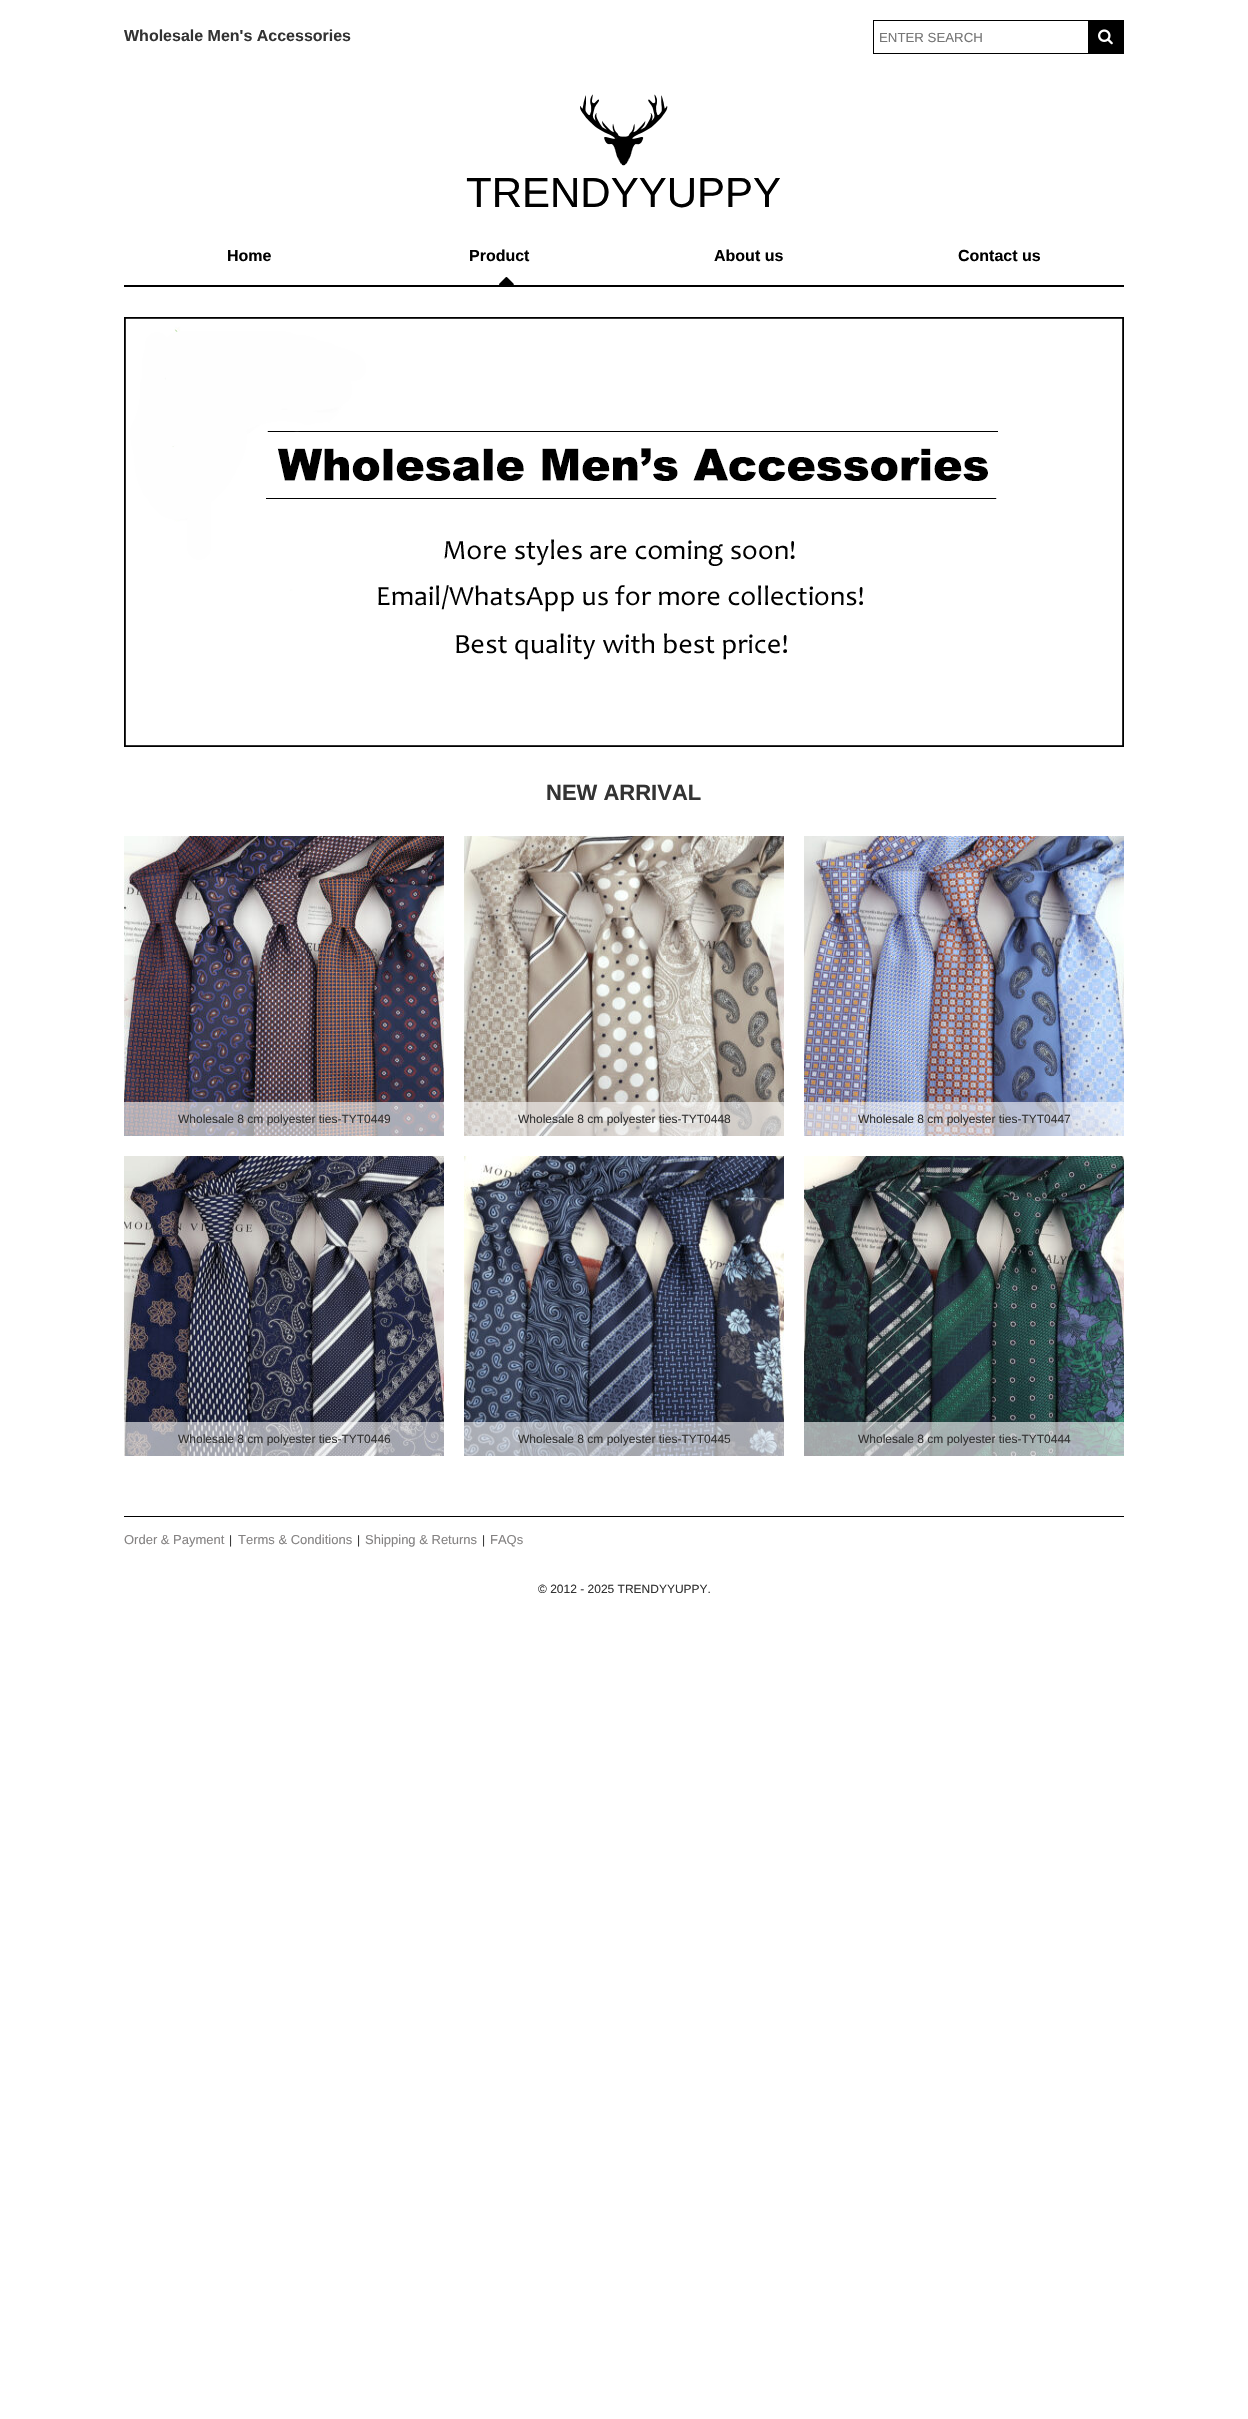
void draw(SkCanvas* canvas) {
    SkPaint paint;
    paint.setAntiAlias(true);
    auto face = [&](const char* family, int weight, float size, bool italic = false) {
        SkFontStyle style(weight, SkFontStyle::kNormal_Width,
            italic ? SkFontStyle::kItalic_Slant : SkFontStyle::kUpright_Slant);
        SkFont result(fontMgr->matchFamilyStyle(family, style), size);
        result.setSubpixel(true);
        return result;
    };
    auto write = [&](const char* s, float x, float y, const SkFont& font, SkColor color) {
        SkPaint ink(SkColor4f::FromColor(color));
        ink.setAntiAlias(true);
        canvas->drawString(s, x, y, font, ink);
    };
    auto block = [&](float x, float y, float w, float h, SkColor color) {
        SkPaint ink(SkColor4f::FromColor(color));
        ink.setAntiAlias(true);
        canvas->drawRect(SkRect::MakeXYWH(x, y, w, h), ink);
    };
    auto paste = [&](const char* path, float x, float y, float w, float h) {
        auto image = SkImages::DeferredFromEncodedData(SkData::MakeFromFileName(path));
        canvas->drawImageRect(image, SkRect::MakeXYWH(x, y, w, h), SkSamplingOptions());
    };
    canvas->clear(SK_ColorWHITE);
    auto kFont1 = face("Liberation Sans", 700, 16);
    write("Wholesale Men's Accessories", 124, 41, kFont1, SkColorSetRGB(51, 51, 51));
    paint.setStyle(SkPaint::kStroke_Style);
    paint.setStrokeWidth(1);
    paint.setColor(SK_ColorBLACK);
    canvas->drawRect(SkRect::MakeXYWH(873.5f, 20.5f, 250, 33), paint);
    auto kFont2 = face("Liberation Sans", 400, 13.25f);
    write("ENTER SEARCH", 879, 42, kFont2, SkColorSetRGB(117, 117, 117));
    block(1088, 21, 35, 32, SK_ColorBLACK);
    paste("pic1.png", 1098, 29, 15, 16);
    paste("pic2.png", 580, 94, 88, 72);
    auto kFont3 = face("Liberation Sans", 400, 42);
    write("TRENDYYUPPY", 466, 207, kFont3, SK_ColorBLACK);
    block(124, 285, 1000, 2, SK_ColorBLACK);
    write("Home", 227, 261, kFont1, SK_ColorBLACK);
    write("Product", 469, 261, kFont1, SK_ColorBLACK);
    write("About us", 714, 261, kFont1, SK_ColorBLACK);
    write("Contact us", 958, 261, kFont1, SK_ColorBLACK);
    paste("pic3.png", 499, 277, 15, 8);
    paste("pic4.png", 124, 317, 1000, 430);
    auto kFont4 = face("Liberation Sans", 700, 22);
    write("NEW ARRIVAL", 546, 800, kFont4, SkColorSetRGB(51, 51, 51));
    paste("pic5.png", 124, 836, 320, 300);
    block(124, 1102, 320, 34, SkColorSetARGB(153, 255, 255, 255));
    auto kFont5 = face("Liberation Sans", 400, 12);
    write("Wholesale 8 cm polyester ties-TYT0449", 178, 1123, kFont5, SkColorSetRGB(51, 51, 51));
    paste("pic6.png", 464, 836, 320, 300);
    block(464, 1102, 320, 34, SkColorSetARGB(153, 255, 255, 255));
    write("Wholesale 8 cm polyester ties-TYT0448", 518, 1123, kFont5, SkColorSetRGB(51, 51, 51));
    paste("pic7.png", 804, 836, 320, 300);
    block(804, 1102, 320, 34, SkColorSetARGB(153, 255, 255, 255));
    write("Wholesale 8 cm polyester ties-TYT0447", 858, 1123, kFont5, SkColorSetRGB(51, 51, 51));
    paste("pic8.png", 124, 1156, 320, 300);
    block(124, 1422, 320, 34, SkColorSetARGB(153, 255, 255, 255));
    write("Wholesale 8 cm polyester ties-TYT0446", 178, 1443, kFont5, SkColorSetRGB(51, 51, 51));
    paste("pic9.png", 464, 1156, 320, 300);
    block(464, 1422, 320, 34, SkColorSetARGB(153, 255, 255, 255));
    write("Wholesale 8 cm polyester ties-TYT0445", 518, 1443, kFont5, SkColorSetRGB(51, 51, 51));
    paste("pic10.png", 804, 1156, 320, 300);
    block(804, 1422, 320, 34, SkColorSetARGB(153, 255, 255, 255));
    write("Wholesale 8 cm polyester ties-TYT0444", 858, 1443, kFont5, SkColorSetRGB(51, 51, 51));
    block(124, 1516, 1000, 1, SK_ColorBLACK);
    auto kFont6 = face("Liberation Sans", 400, 13);
    write("Order & Payment", 124, 1544, kFont6, SkColorSetRGB(132, 130, 130));
    write("|", 229, 1544, kFont5, SkColorSetRGB(51, 51, 51));
    write("Terms & Conditions", 238, 1544, kFont6, SkColorSetRGB(132, 130, 130));
    write("|", 357, 1544, kFont5, SkColorSetRGB(51, 51, 51));
    write("Shipping & Returns", 365, 1544, kFont6, SkColorSetRGB(132, 130, 130));
    write("|", 482, 1544, kFont5, SkColorSetRGB(51, 51, 51));
    write("FAQs", 490, 1544, kFont6, SkColorSetRGB(132, 130, 130));
    write("© 2012 - 2025 TRENDYYUPPY.", 538, 1593, kFont5, SkColorSetRGB(51, 51, 51));
}
